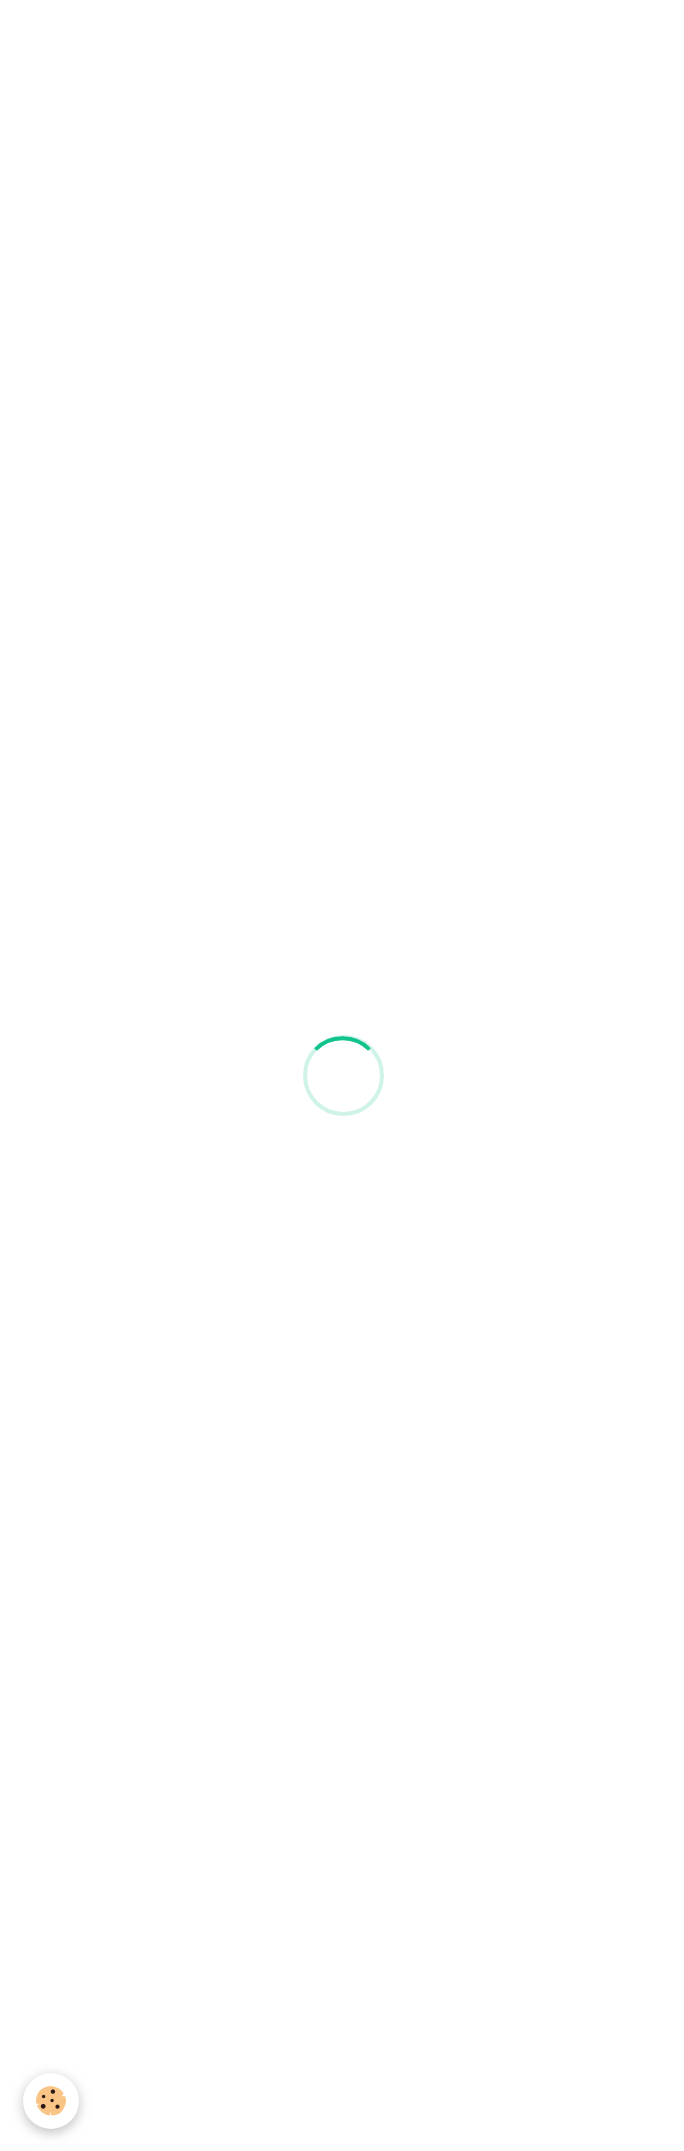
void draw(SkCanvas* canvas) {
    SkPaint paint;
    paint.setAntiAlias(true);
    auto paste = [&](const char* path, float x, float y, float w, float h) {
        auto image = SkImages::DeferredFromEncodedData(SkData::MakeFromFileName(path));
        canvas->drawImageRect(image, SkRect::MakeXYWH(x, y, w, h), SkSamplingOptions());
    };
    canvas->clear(SK_ColorWHITE);
    paint.setStyle(SkPaint::kStroke_Style);
    paint.setStrokeWidth(3.8f);
    paint.setColor(SkColorSetRGB(16, 195, 141));
    canvas->drawPath(SkPathBuilder().moveTo(315.5f, 1049.5f).cubicTo(330, 1034.5f, 355, 1034.5f, 369.5f, 1049.5f).detach(), paint);
    paint.setStrokeWidth(4);
    paint.setColor(SkColorSetARGB(51, 16, 195, 141));
    canvas->drawCircle(343.5f, 1075.5f, 38.5f, paint);
    paint.setStyle(SkPaint::kFill_Style);
    paint.setColor(SkColorSetARGB(61, 0, 0, 0));
    paint.setMaskFilter(SkMaskFilter::MakeBlur(kNormal_SkBlurStyle, 6));
    canvas->drawRoundRect(SkRect::MakeXYWH(23, 2076, 56, 57), 28, 28, paint);
    paint.setMaskFilter(nullptr);
    paint.setColor(SK_ColorWHITE);
    canvas->drawCircle(51, 2101, 28, paint);
    paste("pic1.png", 36, 2086, 30, 30);
}
